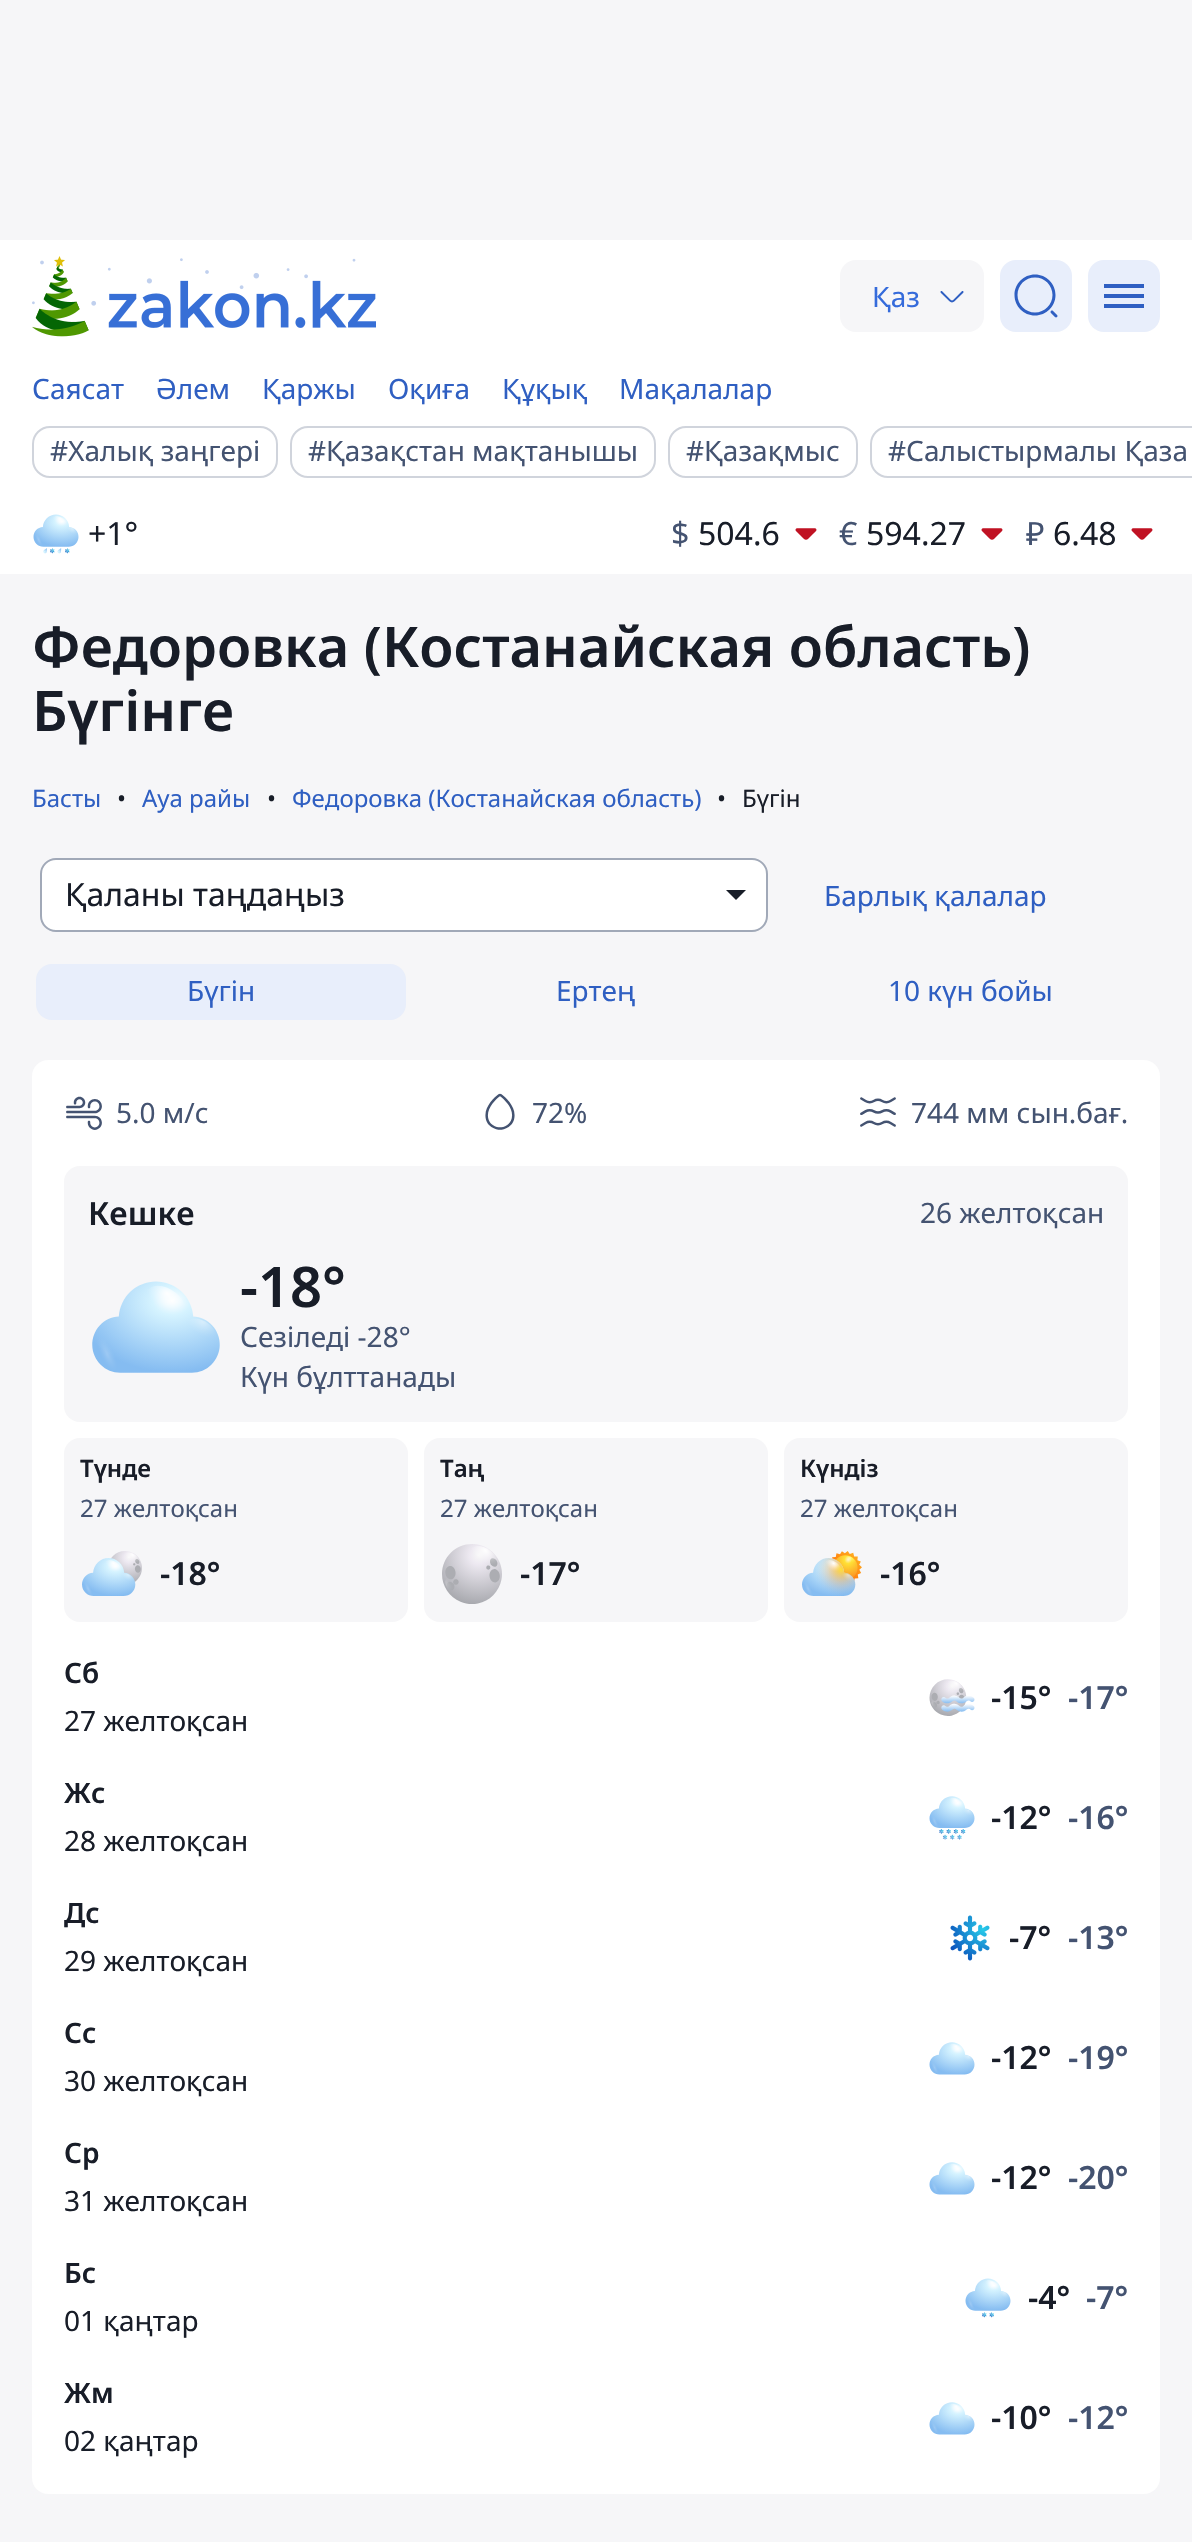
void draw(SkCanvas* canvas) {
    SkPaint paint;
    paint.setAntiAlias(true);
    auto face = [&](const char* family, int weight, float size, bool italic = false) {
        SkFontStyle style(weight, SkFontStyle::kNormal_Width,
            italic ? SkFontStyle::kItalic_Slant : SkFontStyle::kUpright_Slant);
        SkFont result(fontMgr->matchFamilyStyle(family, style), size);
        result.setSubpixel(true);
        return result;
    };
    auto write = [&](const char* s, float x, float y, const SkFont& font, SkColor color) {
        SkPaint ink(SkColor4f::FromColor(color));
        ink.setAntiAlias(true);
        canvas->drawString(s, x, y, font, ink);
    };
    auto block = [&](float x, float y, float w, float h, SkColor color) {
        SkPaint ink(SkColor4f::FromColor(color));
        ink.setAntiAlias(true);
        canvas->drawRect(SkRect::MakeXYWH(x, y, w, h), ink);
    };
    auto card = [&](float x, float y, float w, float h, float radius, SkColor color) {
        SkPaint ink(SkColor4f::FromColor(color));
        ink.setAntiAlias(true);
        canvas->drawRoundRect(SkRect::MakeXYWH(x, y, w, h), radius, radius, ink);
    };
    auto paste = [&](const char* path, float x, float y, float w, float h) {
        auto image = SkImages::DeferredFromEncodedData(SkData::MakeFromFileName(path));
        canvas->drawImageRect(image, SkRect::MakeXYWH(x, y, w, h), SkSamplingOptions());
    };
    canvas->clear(SkColorSetRGB(246, 246, 248));
    block(0, 240, 1192, 334, SK_ColorWHITE);
    paste("pic1.png", 32, 256, 344, 81);
    card(840, 260, 144, 72, 16, SkColorSetRGB(246, 246, 248));
    auto kFont1 = face("Noto Sans", 400, 28);
    write("Қаз", 872, 307, kFont1, SkColorSetRGB(53, 107, 219));
    paste("pic2.png", 940, 291, 24, 12);
    card(1000, 260, 72, 72, 16, SkColorSetRGB(232, 238, 251));
    paste("pic3.png", 1014, 274, 44, 44);
    card(1088, 260, 72, 72, 16, SkColorSetRGB(232, 238, 251));
    block(1104, 284, 40, 4, SkColorSetRGB(47, 95, 194));
    block(1104, 294, 40, 4, SkColorSetRGB(47, 95, 194));
    block(1104, 304, 40, 4, SkColorSetRGB(47, 95, 194));
    write("Саясат", 32, 399, kFont1, SkColorSetRGB(47, 95, 194));
    write("Әлем", 156, 399, kFont1, SkColorSetRGB(47, 95, 194));
    write("Қаржы", 262, 399, kFont1, SkColorSetRGB(47, 95, 194));
    write("Оқиға", 388, 399, kFont1, SkColorSetRGB(47, 95, 194));
    write("Құқық", 502, 399, kFont1, SkColorSetRGB(47, 95, 194));
    write("Мақалалар", 619, 399, kFont1, SkColorSetRGB(47, 95, 194));
    paint.setStyle(SkPaint::kStroke_Style);
    paint.setStrokeWidth(2);
    paint.setColor(SkColorSetRGB(208, 212, 220));
    canvas->drawRoundRect(SkRect::MakeXYWH(33, 427, 244, 50), 17, 17, paint);
    write("#Халық заңгері", 50, 461, kFont1, SkColorSetRGB(68, 83, 113));
    canvas->drawRoundRect(SkRect::MakeXYWH(291, 427, 364, 50), 17, 17, paint);
    write("#Қазақстан мақтанышы", 308, 461, kFont1, SkColorSetRGB(68, 83, 113));
    canvas->drawRoundRect(SkRect::MakeXYWH(669, 427, 188, 50), 17, 17, paint);
    write("#Қазақмыс", 686, 461, kFont1, SkColorSetRGB(68, 83, 113));
    canvas->drawRoundRect(SkRect::MakeXYWH(871, 427, 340, 50), 17, 17, paint);
    write("#Салыстырмалы Қаза", 888, 461, kFont1, SkColorSetRGB(68, 83, 113));
    paste("pic4.png", 33, 514, 46, 40);
    auto kFont2 = face("Noto Sans", 400, 32);
    write("+1°", 88, 545, kFont2, SkColorSetRGB(24, 29, 40));
    write("$", 671, 545, kFont2, SkColorSetRGB(68, 83, 113));
    write("504.6", 698, 545, kFont2, SkColorSetRGB(24, 29, 40));
    paste("pic5.png", 795, 528, 22, 12);
    write("€", 839, 545, kFont2, SkColorSetRGB(68, 83, 113));
    write("594.27", 866, 545, kFont2, SkColorSetRGB(24, 29, 40));
    paste("pic5.png", 981, 528, 22, 12);
    write("₽", 1026, 545, kFont2, SkColorSetRGB(68, 83, 113));
    write("6.48", 1053, 545, kFont2, SkColorSetRGB(24, 29, 40));
    paste("pic5.png", 1131, 528, 22, 12);
    auto kFont3 = face("Noto Sans", 600, 56);
    write("Федоровка (Костанайская область)", 32, 667, kFont3, SkColorSetRGB(24, 29, 40));
    write("Бүгінге", 32, 731, kFont3, SkColorSetRGB(24, 29, 40));
    auto kFont4 = face("Noto Sans", 400, 24);
    write("Басты", 32, 807, kFont4, SkColorSetRGB(47, 95, 194));
    write("•", 117, 807, kFont4, SkColorSetRGB(24, 29, 40));
    write("Ауа райы", 142, 807, kFont4, SkColorSetRGB(47, 95, 194));
    write("•", 267, 807, kFont4, SkColorSetRGB(24, 29, 40));
    write("Федоровка (Костанайская область)", 292, 807, kFont4, SkColorSetRGB(47, 95, 194));
    write("•", 717, 807, kFont4, SkColorSetRGB(24, 29, 40));
    write("Бүгін", 742, 807, kFont4, SkColorSetRGB(24, 29, 40));
    paint.setStyle(SkPaint::kFill_Style);
    paint.setColor(SK_ColorWHITE);
    canvas->drawRoundRect(SkRect::MakeXYWH(41, 859, 726, 72), 15, 15, paint);
    paint.setStyle(SkPaint::kStroke_Style);
    paint.setColor(SkColorSetRGB(161, 169, 184));
    canvas->drawRoundRect(SkRect::MakeXYWH(41, 859, 726, 72), 15, 15, paint);
    write("Қаланы таңдаңыз", 65, 906, kFont2, SkColorSetRGB(24, 29, 40));
    paint.setStyle(SkPaint::kFill_Style);
    paint.setColor(SkColorSetRGB(24, 29, 40));
    canvas->drawPath(SkPathBuilder().moveTo(726, 890).lineTo(746, 890).lineTo(736, 900).close().detach(), paint);
    write("Барлық қалалар", 824, 906, kFont1, SkColorSetRGB(47, 95, 194));
    card(36, 964, 370, 56, 16, SkColorSetRGB(232, 238, 251));
    write("Бүгін", 187, 1001, kFont1, SkColorSetRGB(47, 95, 194));
    write("Ертең", 556, 1001, kFont1, SkColorSetRGB(47, 95, 194));
    write("10 күн бойы", 888, 1001, kFont1, SkColorSetRGB(47, 95, 194));
    card(32, 1060, 1128, 1434, 16, SK_ColorWHITE);
    paste("pic6.png", 66, 1096, 36, 34);
    write("5.0 м/с", 116, 1123, kFont1, SkColorSetRGB(68, 83, 113));
    paste("pic7.png", 485, 1093, 30, 37);
    write("72%", 532, 1123, kFont1, SkColorSetRGB(68, 83, 113));
    paste("pic8.png", 860, 1097, 36, 30);
    write("744 мм сын.бағ.", 911, 1123, kFont1, SkColorSetRGB(68, 83, 113));
    card(64, 1166, 1064, 256, 16, SkColorSetRGB(246, 246, 248));
    auto kFont5 = face("Noto Sans", 600, 32);
    write("Кешке", 88, 1225, kFont5, SkColorSetRGB(24, 29, 40));
    write("26 желтоқсан", 920, 1223, kFont1, SkColorSetRGB(68, 83, 113));
    paste("pic9.png", 92, 1281, 128, 92);
    write("-18°", 240, 1307, kFont3, SkColorSetRGB(24, 29, 40));
    write("Сезіледі -28°", 240, 1347, kFont1, SkColorSetRGB(68, 83, 113));
    write("Күн бұлттанады", 240, 1387, kFont1, SkColorSetRGB(68, 83, 113));
    card(64, 1438, 344, 184, 16, SkColorSetRGB(246, 246, 248));
    auto kFont6 = face("Noto Sans", 600, 24);
    write("Түнде", 80, 1477, kFont6, SkColorSetRGB(24, 29, 40));
    write("27 желтоқсан", 80, 1517, kFont4, SkColorSetRGB(68, 83, 113));
    paste("pic10.png", 82, 1551, 60, 45);
    write("-18°", 160, 1585, kFont5, SkColorSetRGB(24, 29, 40));
    card(424, 1438, 344, 184, 16, SkColorSetRGB(246, 246, 248));
    write("Таң", 440, 1477, kFont6, SkColorSetRGB(24, 29, 40));
    write("27 желтоқсан", 440, 1517, kFont4, SkColorSetRGB(68, 83, 113));
    paste("pic11.png", 442, 1544, 60, 60);
    write("-17°", 520, 1585, kFont5, SkColorSetRGB(24, 29, 40));
    card(784, 1438, 344, 184, 16, SkColorSetRGB(246, 246, 248));
    write("Күндіз", 800, 1477, kFont6, SkColorSetRGB(24, 29, 40));
    write("27 желтоқсан", 800, 1517, kFont4, SkColorSetRGB(68, 83, 113));
    paste("pic12.png", 802, 1551, 60, 45);
    write("-16°", 880, 1585, kFont5, SkColorSetRGB(24, 29, 40));
    auto kFont7 = face("Noto Sans", 600, 28);
    write("Сб", 64, 1683, kFont7, SkColorSetRGB(24, 29, 40));
    write("27 желтоқсан", 64, 1731, kFont1, SkColorSetRGB(24, 29, 40));
    paste("pic13.png", 929, 1679, 46, 37);
    write("-15°", 991, 1709, kFont5, SkColorSetRGB(24, 29, 40));
    write("-17°", 1068, 1709, kFont5, SkColorSetRGB(68, 83, 113));
    write("Жс", 64, 1803, kFont7, SkColorSetRGB(24, 29, 40));
    write("28 желтоқсан", 64, 1851, kFont1, SkColorSetRGB(24, 29, 40));
    paste("pic14.png", 929, 1796, 46, 44);
    write("-12°", 991, 1829, kFont5, SkColorSetRGB(24, 29, 40));
    write("-16°", 1068, 1829, kFont5, SkColorSetRGB(68, 83, 113));
    write("Дс", 64, 1923, kFont7, SkColorSetRGB(24, 29, 40));
    write("29 желтоқсан", 64, 1971, kFont1, SkColorSetRGB(24, 29, 40));
    paste("pic15.png", 950, 1915, 40, 46);
    write("-7°", 1009, 1949, kFont5, SkColorSetRGB(24, 29, 40));
    write("-13°", 1068, 1949, kFont5, SkColorSetRGB(68, 83, 113));
    write("Сс", 64, 2043, kFont7, SkColorSetRGB(24, 29, 40));
    write("30 желтоқсан", 64, 2091, kFont1, SkColorSetRGB(24, 29, 40));
    paste("pic16.png", 929, 2042, 46, 33);
    write("-12°", 991, 2069, kFont5, SkColorSetRGB(24, 29, 40));
    write("-19°", 1068, 2069, kFont5, SkColorSetRGB(68, 83, 113));
    write("Ср", 64, 2163, kFont7, SkColorSetRGB(24, 29, 40));
    write("31 желтоқсан", 64, 2211, kFont1, SkColorSetRGB(24, 29, 40));
    paste("pic16.png", 929, 2162, 46, 33);
    write("-12°", 991, 2189, kFont5, SkColorSetRGB(24, 29, 40));
    write("-20°", 1068, 2189, kFont5, SkColorSetRGB(68, 83, 113));
    write("Бс", 64, 2283, kFont7, SkColorSetRGB(24, 29, 40));
    write("01 қаңтар", 64, 2331, kFont1, SkColorSetRGB(24, 29, 40));
    paste("pic17.png", 965, 2278, 46, 40);
    write("-4°", 1028, 2309, kFont5, SkColorSetRGB(24, 29, 40));
    write("-7°", 1086, 2309, kFont5, SkColorSetRGB(68, 83, 113));
    write("Жм", 64, 2403, kFont7, SkColorSetRGB(24, 29, 40));
    write("02 қаңтар", 64, 2451, kFont1, SkColorSetRGB(24, 29, 40));
    paste("pic16.png", 929, 2402, 46, 33);
    write("-10°", 991, 2429, kFont5, SkColorSetRGB(24, 29, 40));
    write("-12°", 1068, 2429, kFont5, SkColorSetRGB(68, 83, 113));
}
